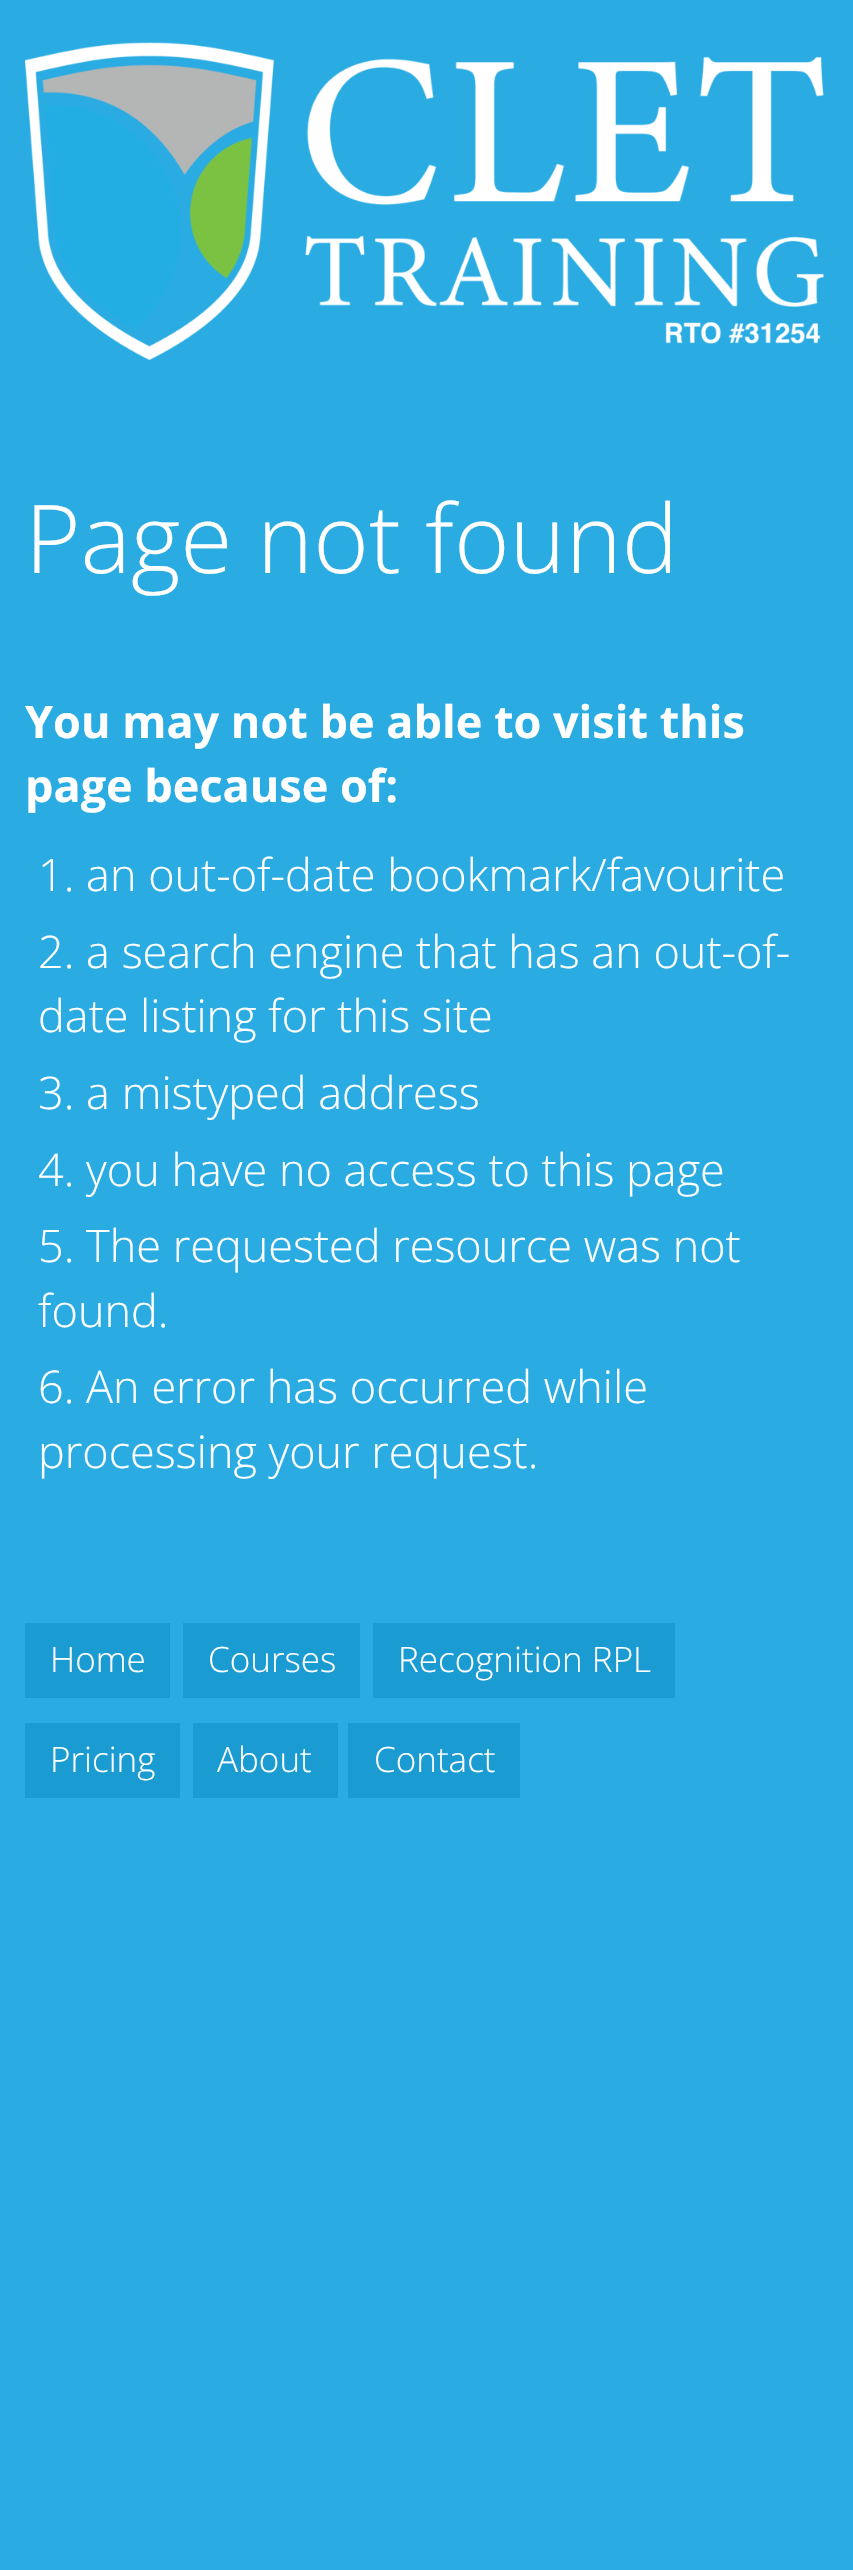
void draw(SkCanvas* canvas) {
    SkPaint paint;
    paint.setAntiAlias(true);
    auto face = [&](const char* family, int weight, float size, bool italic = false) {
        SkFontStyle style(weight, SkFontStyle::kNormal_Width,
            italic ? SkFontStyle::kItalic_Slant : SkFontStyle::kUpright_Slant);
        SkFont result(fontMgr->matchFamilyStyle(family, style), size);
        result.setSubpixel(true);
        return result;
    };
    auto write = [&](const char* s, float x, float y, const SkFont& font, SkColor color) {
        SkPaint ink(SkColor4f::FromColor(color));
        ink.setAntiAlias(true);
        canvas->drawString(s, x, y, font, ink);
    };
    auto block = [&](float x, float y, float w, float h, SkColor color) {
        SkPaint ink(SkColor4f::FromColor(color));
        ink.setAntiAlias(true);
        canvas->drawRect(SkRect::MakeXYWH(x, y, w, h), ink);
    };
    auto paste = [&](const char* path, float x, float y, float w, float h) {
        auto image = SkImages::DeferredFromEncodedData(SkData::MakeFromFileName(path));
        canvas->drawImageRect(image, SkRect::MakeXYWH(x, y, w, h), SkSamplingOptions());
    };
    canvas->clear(SkColorSetRGB(42, 172, 227));
    paste("pic1.png", 25, 42, 799, 318);
    auto kFont1 = face("Open Sans", 300, 95);
    write("Page not found", 25, 573, kFont1, SK_ColorWHITE);
    auto kFont2 = face("Open Sans", 700, 45);
    write("You may not be able to visit this", 25, 738, kFont2, SK_ColorWHITE);
    write("page because of:", 25, 802, kFont2, SK_ColorWHITE);
    auto kFont3 = face("Open Sans", 300, 45);
    write("1. an out-of-date bookmark/favourite", 38, 891, kFont3, SK_ColorWHITE);
    write("2. a search engine that has an out-of-", 38, 968, kFont3, SK_ColorWHITE);
    write("date listing for this site", 38, 1032, kFont3, SK_ColorWHITE);
    write("3. a mistyped address", 38, 1109, kFont3, SK_ColorWHITE);
    write("4. you have no access to this page", 38, 1186, kFont3, SK_ColorWHITE);
    write("5. The requested resource was not", 38, 1262, kFont3, SK_ColorWHITE);
    write("found.", 38, 1327, kFont3, SK_ColorWHITE);
    write("6. An error has occurred while", 38, 1403, kFont3, SK_ColorWHITE);
    write("processing your request.", 38, 1468, kFont3, SK_ColorWHITE);
    block(25, 1623, 145, 75, SkColorSetRGB(26, 155, 209));
    auto kFont4 = face("Open Sans", 300, 35);
    write("Home", 50, 1672, kFont4, SK_ColorWHITE);
    block(183, 1623, 177, 75, SkColorSetRGB(26, 155, 209));
    write("Courses", 208, 1672, kFont4, SK_ColorWHITE);
    block(373, 1623, 302, 75, SkColorSetRGB(26, 155, 209));
    write("Recognition RPL", 398, 1672, kFont4, SK_ColorWHITE);
    block(25, 1723, 155, 75, SkColorSetRGB(26, 155, 209));
    write("Pricing", 50, 1772, kFont4, SK_ColorWHITE);
    block(193, 1723, 145, 75, SkColorSetRGB(26, 155, 209));
    write("About", 217, 1772, kFont4, SK_ColorWHITE);
    block(348, 1723, 172, 75, SkColorSetRGB(26, 155, 209));
    write("Contact", 374, 1772, kFont4, SK_ColorWHITE);
}
